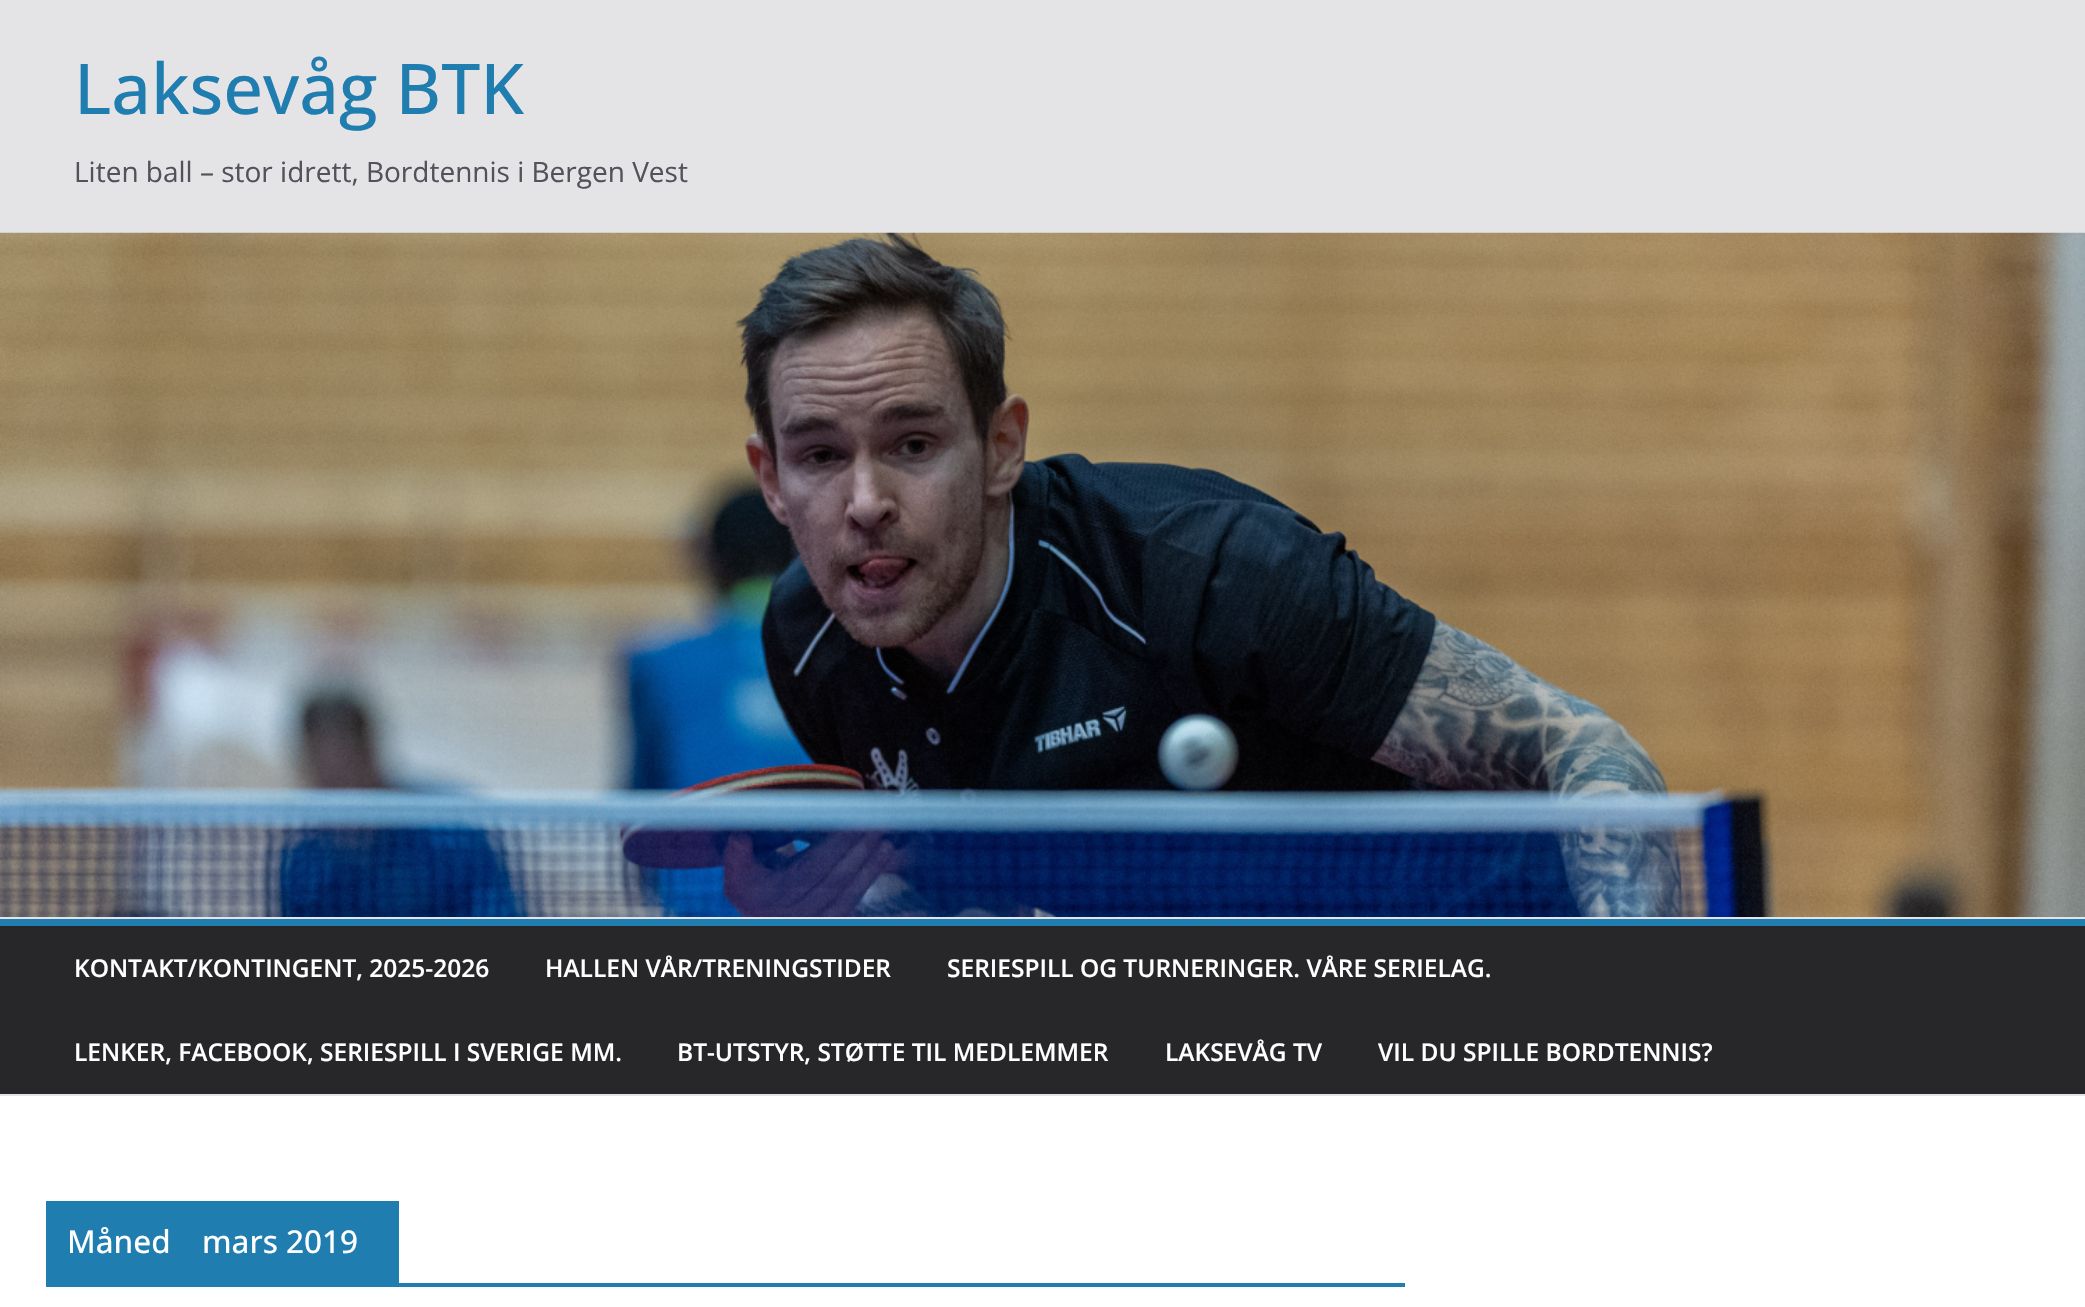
void draw(SkCanvas* canvas) {
    SkPaint paint;
    paint.setAntiAlias(true);
    auto face = [&](const char* family, int weight, float size, bool italic = false) {
        SkFontStyle style(weight, SkFontStyle::kNormal_Width,
            italic ? SkFontStyle::kItalic_Slant : SkFontStyle::kUpright_Slant);
        SkFont result(fontMgr->matchFamilyStyle(family, style), size);
        result.setSubpixel(true);
        return result;
    };
    auto write = [&](const char* s, float x, float y, const SkFont& font, SkColor color) {
        SkPaint ink(SkColor4f::FromColor(color));
        ink.setAntiAlias(true);
        canvas->drawString(s, x, y, font, ink);
    };
    auto block = [&](float x, float y, float w, float h, SkColor color) {
        SkPaint ink(SkColor4f::FromColor(color));
        ink.setAntiAlias(true);
        canvas->drawRect(SkRect::MakeXYWH(x, y, w, h), ink);
    };
    auto paste = [&](const char* path, float x, float y, float w, float h) {
        auto image = SkImages::DeferredFromEncodedData(SkData::MakeFromFileName(path));
        canvas->drawImageRect(image, SkRect::MakeXYWH(x, y, w, h), SkSamplingOptions());
    };
    canvas->clear(SkColorSetRGB(228, 228, 231));
    auto kFont1 = face("Open Sans", 500, 70);
    write("Laksevåg BTK", 74, 114, kFont1, SkColorSetRGB(32, 125, 175));
    auto kFont2 = face("Open Sans", 400, 28);
    write("Liten ball – stor idrett, Bordtennis i Bergen Vest", 74, 182, kFont2, SkColorSetRGB(82, 82, 91));
    paste("pic1.png", 0, 232, 2085, 685);
    block(0, 926, 2085, 168, SkColorSetRGB(39, 39, 42));
    block(0, 919, 2085, 7, SkColorSetRGB(32, 125, 175));
    auto kFont3 = face("Open Sans", 600, 24.5f);
    write("KONTAKT/KONTINGENT, 2025-2026", 74, 977, kFont3, SK_ColorWHITE);
    write("HALLEN VÅR/TRENINGSTIDER", 545, 977, kFont3, SK_ColorWHITE);
    write("SERIESPILL OG TURNERINGER. VÅRE SERIELAG.", 947, 977, kFont3, SK_ColorWHITE);
    write("LENKER, FACEBOOK, SERIESPILL I SVERIGE MM.", 74, 1061, kFont3, SK_ColorWHITE);
    write("BT-UTSTYR, STØTTE TIL MEDLEMMER", 677, 1061, kFont3, SK_ColorWHITE);
    write("LAKSEVÅG TV", 1165, 1061, kFont3, SK_ColorWHITE);
    write("VIL DU SPILLE BORDTENNIS?", 1378, 1061, kFont3, SK_ColorWHITE);
    block(0, 1096, 2085, 211, SK_ColorWHITE);
    block(46, 1283, 1359, 4, SkColorSetRGB(32, 125, 175));
    block(46, 1201, 353, 82, SkColorSetRGB(32, 125, 175));
    auto kFont4 = face("Open Sans", 500, 31.5f);
    write("Måned", 67, 1253, kFont4, SK_ColorWHITE);
    write("mars 2019", 202, 1253, kFont4, SK_ColorWHITE);
}
